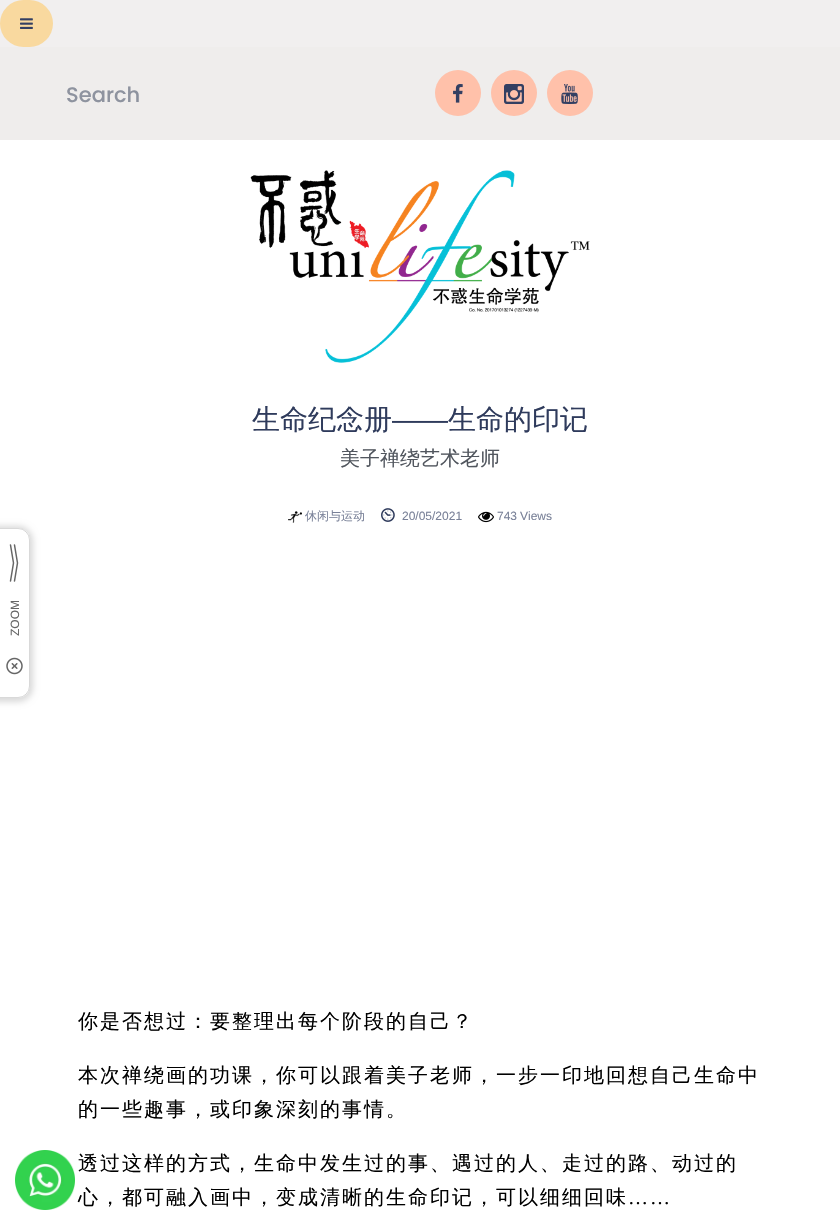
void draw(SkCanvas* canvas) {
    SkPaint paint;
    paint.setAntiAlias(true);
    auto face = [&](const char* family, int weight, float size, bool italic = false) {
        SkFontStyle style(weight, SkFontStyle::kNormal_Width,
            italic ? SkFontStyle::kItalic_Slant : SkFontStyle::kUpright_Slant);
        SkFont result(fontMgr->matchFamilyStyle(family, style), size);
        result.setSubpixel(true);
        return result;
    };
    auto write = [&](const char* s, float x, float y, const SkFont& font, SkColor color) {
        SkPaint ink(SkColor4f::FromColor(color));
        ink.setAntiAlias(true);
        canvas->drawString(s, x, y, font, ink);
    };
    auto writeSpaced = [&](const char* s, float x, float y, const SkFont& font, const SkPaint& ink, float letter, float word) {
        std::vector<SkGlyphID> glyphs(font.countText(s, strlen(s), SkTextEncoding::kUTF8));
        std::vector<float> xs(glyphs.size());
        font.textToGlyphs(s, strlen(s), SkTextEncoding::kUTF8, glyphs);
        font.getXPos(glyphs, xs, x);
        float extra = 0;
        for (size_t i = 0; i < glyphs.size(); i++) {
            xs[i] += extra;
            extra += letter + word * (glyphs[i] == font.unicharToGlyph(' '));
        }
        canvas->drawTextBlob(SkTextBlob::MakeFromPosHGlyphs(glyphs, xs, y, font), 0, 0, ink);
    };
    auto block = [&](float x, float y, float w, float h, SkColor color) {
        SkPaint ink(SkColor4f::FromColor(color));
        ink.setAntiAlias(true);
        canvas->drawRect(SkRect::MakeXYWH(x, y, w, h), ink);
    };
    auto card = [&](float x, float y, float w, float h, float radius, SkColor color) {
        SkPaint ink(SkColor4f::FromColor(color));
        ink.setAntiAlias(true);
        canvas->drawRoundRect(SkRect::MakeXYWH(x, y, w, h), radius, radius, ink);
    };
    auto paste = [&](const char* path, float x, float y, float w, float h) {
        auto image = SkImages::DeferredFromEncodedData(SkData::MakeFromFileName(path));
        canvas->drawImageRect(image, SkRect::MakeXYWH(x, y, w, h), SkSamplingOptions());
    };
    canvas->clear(SkColorSetRGB(241, 239, 239));
    card(0, 0, 53, 47, 23.5f, SkColorSetRGB(249, 217, 159));
    paste("pic1.png", 20, 18, 13, 11);
    block(0, 140, 840, 1085, SK_ColorWHITE);
    paint.setColor(SkColorSetARGB(38, 0, 0, 0));
    paint.setMaskFilter(SkMaskFilter::MakeBlur(kNormal_SkBlurStyle, 3));
    canvas->drawRoundRect(SkRect::MakeXYWH(-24, 526, 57, 176), 15, 15, paint);
    paint.setMaskFilter(nullptr);
    card(-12, 528, 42, 170, 12, SK_ColorWHITE);
    paint.setStyle(SkPaint::kStroke_Style);
    paint.setStrokeWidth(1);
    canvas->drawRoundRect(SkRect::MakeXYWH(-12.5f, 528.5f, 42, 169), 11.5f, 11.5f, paint);
    paint.setStrokeWidth(1.5f);
    paint.setStrokeCap(SkPaint::kRound_Cap);
    paint.setColor(SkColorSetRGB(102, 102, 102));
    canvas->drawPath(SkPathBuilder().moveTo(14.5f, 545).lineTo(17.5f, 563).moveTo(17.5f, 563).lineTo(14.5f, 581).moveTo(13.5f, 563).lineTo(10.5f, 545).moveTo(10.5f, 581).lineTo(13.5f, 563).detach(), paint);
    auto kFont1 = face("Liberation Sans", 400, 12);
    canvas->save();
    canvas->rotate(-90, 19, 636);
    write("ZOOM", 19, 636, kFont1, SkColorSetRGB(102, 102, 102));
    canvas->restore();
    paste("pic2.png", 6, 657, 17, 18);
    block(0, 47, 840, 93, SkColorSetRGB(239, 237, 236));
    auto kFont2 = face("Poppins", 500, 21);
    write("Search", 66, 102, kFont2, SkColorSetRGB(142, 147, 159));
    paint.setStyle(SkPaint::kFill_Style);
    paint.setColor(SkColorSetRGB(255, 193, 170));
    canvas->drawCircle(458, 93, 23, paint);
    paste("pic3.png", 453, 84, 10, 19);
    canvas->drawCircle(514, 93, 23, paint);
    paste("pic4.png", 504, 84, 20, 20);
    canvas->drawCircle(570, 93, 23, paint);
    paste("pic5.png", 561, 84, 17, 20);
    paste("pic6.png", 250, 170, 340, 193);
    auto kFont3 = face("WenQuanYi Zen Hei", 500, 28);
    write("生命纪念册", 252, 429, kFont3, SkColorSetRGB(47, 59, 92));
    auto kFont4 = face("Liberation Sans", 400, 28);
    write("——", 392, 429, kFont4, SkColorSetRGB(47, 59, 92));
    write("生命的印记", 448, 429, kFont3, SkColorSetRGB(47, 59, 92));
    auto kFont5 = face("WenQuanYi Zen Hei", 500, 20);
    write("美子禅绕艺术老师", 340, 465, kFont5, SkColorSetRGB(81, 86, 94));
    paste("pic7.png", 288, 511, 14, 12);
    auto kFont6 = face("WenQuanYi Zen Hei", 500, 12);
    write("休闲与运动", 305, 520, kFont6, SkColorSetRGB(121, 129, 152));
    paste("pic8.png", 381, 508, 14, 14);
    write("20/05/2021", 402, 520, kFont1, SkColorSetRGB(121, 129, 152));
    paste("pic9.png", 478, 511, 16, 12);
    write("743", 497, 520, kFont1, SkColorSetRGB(121, 129, 152));
    write("Views", 520, 520, kFont1, SkColorSetRGB(121, 129, 152));
    paint.setColor(SK_ColorBLACK);
    writeSpaced("你是否想过：要整理出每个阶段的自己？", 78, 1028, kFont5, paint, 2, 0);
    writeSpaced("本次禅绕画的功课，你可以跟着美子老师，一步一印地回想自己生命中", 78, 1082, kFont5, paint, 2, 0);
    writeSpaced("的一些趣事，或印象深刻的事情。", 78, 1116, kFont5, paint, 2, 0);
    writeSpaced("透过这样的方式，生命中发生过的事、遇过的人、走过的路、动过的", 78, 1170, kFont5, paint, 2, 0);
    writeSpaced("心，都可融入画中，变成清晰的生命印记，可以细细回味", 78, 1204, kFont5, paint, 2, 0);
    auto kFont7 = face("Liberation Serif", 400, 20);
    writeSpaced("……", 628, 1204, kFont7, paint, 2, 0);
    paste("pic10.png", 15, 1150, 60, 60);
}
